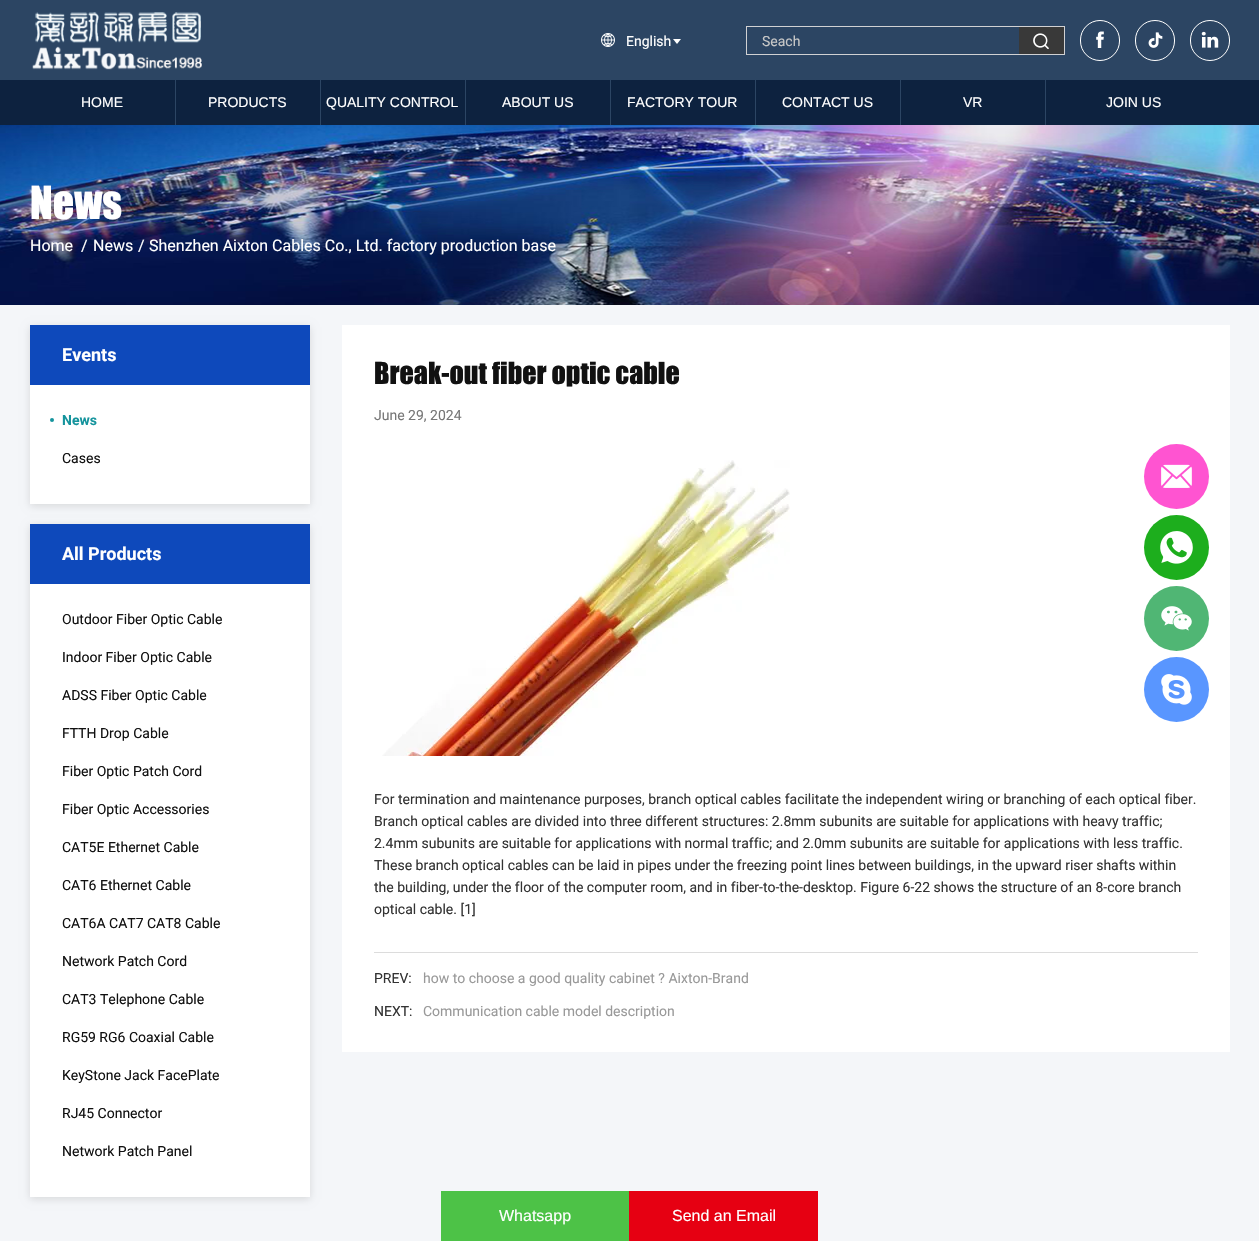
void draw(SkCanvas* canvas) {
    SkPaint paint;
    paint.setAntiAlias(true);
    auto face = [&](const char* family, int weight, float size, bool italic = false) {
        SkFontStyle style(weight, SkFontStyle::kNormal_Width,
            italic ? SkFontStyle::kItalic_Slant : SkFontStyle::kUpright_Slant);
        SkFont result(fontMgr->matchFamilyStyle(family, style), size);
        result.setSubpixel(true);
        return result;
    };
    auto write = [&](const char* s, float x, float y, const SkFont& font, SkColor color) {
        SkPaint ink(SkColor4f::FromColor(color));
        ink.setAntiAlias(true);
        canvas->drawString(s, x, y, font, ink);
    };
    auto block = [&](float x, float y, float w, float h, SkColor color) {
        SkPaint ink(SkColor4f::FromColor(color));
        ink.setAntiAlias(true);
        canvas->drawRect(SkRect::MakeXYWH(x, y, w, h), ink);
    };
    auto paste = [&](const char* path, float x, float y, float w, float h) {
        auto image = SkImages::DeferredFromEncodedData(SkData::MakeFromFileName(path));
        canvas->drawImageRect(image, SkRect::MakeXYWH(x, y, w, h), SkSamplingOptions());
    };
    canvas->clear(SkColorSetRGB(244, 246, 249));
    block(0, 0, 1259, 80, SkColorSetRGB(44, 69, 99));
    paste("pic1.png", 32, 12, 170, 58);
    paste("pic2.png", 601, 33, 14, 14);
    auto kFont1 = face("Roboto", 400, 14);
    write("English", 626, 46, kFont1, SK_ColorWHITE);
    paint.setColor(SK_ColorWHITE);
    canvas->drawPath(SkPathBuilder().moveTo(673, 39).lineTo(681, 39).lineTo(677, 44).close().detach(), paint);
    paint.setStyle(SkPaint::kStroke_Style);
    paint.setStrokeWidth(1);
    paint.setColor(SkColorSetRGB(209, 209, 211));
    canvas->drawRect(SkRect::MakeXYWH(746.5f, 26.5f, 318, 28), paint);
    write("Seach", 762, 46, kFont1, SkColorSetRGB(199, 199, 199));
    block(1019, 27, 45, 27, SkColorSetRGB(57, 57, 57));
    paste("pic3.png", 1033, 33, 16, 17);
    paint.setColor(SK_ColorWHITE);
    canvas->drawRoundRect(SkRect::MakeXYWH(1080.5f, 20.5f, 39, 40), 19.5f, 19.5f, paint);
    paste("pic4.png", 1096, 31, 8, 17);
    canvas->drawRoundRect(SkRect::MakeXYWH(1135.5f, 20.5f, 39, 40), 19.5f, 19.5f, paint);
    paste("pic5.png", 1148, 32, 15, 16);
    canvas->drawRoundRect(SkRect::MakeXYWH(1190.5f, 20.5f, 39, 40), 19.5f, 19.5f, paint);
    paste("pic6.png", 1201, 31, 18, 17);
    block(0, 80, 1259, 45, SkColorSetRGB(13, 34, 63));
    auto kFont2 = face("Liberation Sans", 400, 14);
    write("HOME", 81, 107, kFont2, SK_ColorWHITE);
    block(175, 80, 1, 45, SkColorSetRGB(44, 69, 99));
    write("PRODUCTS", 208, 107, kFont2, SK_ColorWHITE);
    block(320, 80, 1, 45, SkColorSetRGB(44, 69, 99));
    write("QUALITY CONTROL", 326, 107, kFont2, SK_ColorWHITE);
    block(465, 80, 1, 45, SkColorSetRGB(44, 69, 99));
    write("ABOUT US", 502, 107, kFont2, SK_ColorWHITE);
    block(610, 80, 1, 45, SkColorSetRGB(44, 69, 99));
    write("FACTORY TOUR", 627, 107, kFont2, SK_ColorWHITE);
    block(755, 80, 1, 45, SkColorSetRGB(44, 69, 99));
    write("CONTACT US", 782, 107, kFont2, SK_ColorWHITE);
    block(900, 80, 1, 45, SkColorSetRGB(44, 69, 99));
    write("VR", 963, 107, kFont2, SK_ColorWHITE);
    block(1045, 80, 1, 45, SkColorSetRGB(44, 69, 99));
    write("JOIN US", 1106, 107, kFont2, SK_ColorWHITE);
    paste("pic7.png", 0, 125, 1259, 180);
    auto kFont3 = face("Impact", 400, 42);
    write("News", 30, 219, kFont3, SK_ColorWHITE);
    auto kFont4 = face("Roboto", 400, 16);
    write("Home", 30, 251, kFont4, SK_ColorWHITE);
    write("/", 81, 251, kFont4, SK_ColorWHITE);
    write("News", 93, 251, kFont4, SK_ColorWHITE);
    write("/", 138, 251, kFont4, SK_ColorWHITE);
    write("Shenzhen Aixton Cables Co., Ltd. factory production base", 149, 251, kFont4, SK_ColorWHITE);
    paint.setStyle(SkPaint::kFill_Style);
    paint.setColor(SkColorSetARGB(31, 0, 0, 0));
    paint.setMaskFilter(SkMaskFilter::MakeBlur(kNormal_SkBlurStyle, 4));
    canvas->drawRect(SkRect::MakeXYWH(30, 327, 280, 179), paint);
    paint.setMaskFilter(nullptr);
    block(30, 325, 280, 60, SkColorSetRGB(14, 73, 187));
    auto kFont5 = face("Roboto", 700, 18);
    write("Events", 62, 361, kFont5, SK_ColorWHITE);
    block(30, 385, 280, 119, SK_ColorWHITE);
    paint.setColor(SkColorSetRGB(21, 148, 157));
    canvas->drawCircle(52, 420, 2, paint);
    auto kFont6 = face("Roboto", 700, 14);
    write("News", 62, 425, kFont6, SkColorSetRGB(21, 148, 157));
    write("Cases", 62, 463, kFont1, SkColorSetRGB(17, 17, 17));
    paint.setColor(SkColorSetARGB(31, 0, 0, 0));
    paint.setMaskFilter(SkMaskFilter::MakeBlur(kNormal_SkBlurStyle, 4));
    canvas->drawRect(SkRect::MakeXYWH(30, 526, 280, 673), paint);
    paint.setMaskFilter(nullptr);
    block(30, 524, 280, 60, SkColorSetRGB(14, 73, 187));
    write("All Products", 62, 560, kFont5, SK_ColorWHITE);
    block(30, 584, 280, 613, SK_ColorWHITE);
    write("Outdoor Fiber Optic Cable", 62, 624, kFont1, SkColorSetRGB(17, 17, 17));
    write("Indoor Fiber Optic Cable", 62, 662, kFont1, SkColorSetRGB(17, 17, 17));
    write("ADSS Fiber Optic Cable", 62, 700, kFont1, SkColorSetRGB(17, 17, 17));
    write("FTTH Drop Cable", 62, 738, kFont1, SkColorSetRGB(17, 17, 17));
    write("Fiber Optic Patch Cord", 62, 776, kFont1, SkColorSetRGB(17, 17, 17));
    write("Fiber Optic Accessories", 62, 814, kFont1, SkColorSetRGB(17, 17, 17));
    write("CAT5E Ethernet Cable", 62, 852, kFont1, SkColorSetRGB(17, 17, 17));
    write("CAT6 Ethernet Cable", 62, 890, kFont1, SkColorSetRGB(17, 17, 17));
    write("CAT6A CAT7 CAT8 Cable", 62, 928, kFont1, SkColorSetRGB(17, 17, 17));
    write("Network Patch Cord", 62, 966, kFont1, SkColorSetRGB(17, 17, 17));
    write("CAT3 Telephone Cable", 62, 1004, kFont1, SkColorSetRGB(17, 17, 17));
    write("RG59 RG6 Coaxial Cable", 62, 1042, kFont1, SkColorSetRGB(17, 17, 17));
    write("KeyStone Jack FacePlate", 62, 1080, kFont1, SkColorSetRGB(17, 17, 17));
    write("RJ45 Connector", 62, 1118, kFont1, SkColorSetRGB(17, 17, 17));
    write("Network Patch Panel", 62, 1156, kFont1, SkColorSetRGB(17, 17, 17));
    block(342, 325, 888, 727, SK_ColorWHITE);
    auto kFont7 = face("Impact", 400, 28);
    write("Break-out fiber optic cable", 374, 384, kFont7, SkColorSetRGB(17, 17, 17));
    write("June 29, 2024", 374, 420, kFont1, SkColorSetRGB(119, 119, 119));
    block(374, 952, 824, 1, SkColorSetRGB(220, 220, 220));
    paste("pic8.png", 382, 460, 408, 296);
    write("For termination and maintenance purposes, branch optical cables facilitate the independent wiring or branching of each optical fiber.", 374, 804, kFont1, SkColorSetRGB(51, 51, 51));
    write("Branch optical cables are divided into three different structures: 2.8mm subunits are suitable for applications with heavy traffic;", 374, 826, kFont1, SkColorSetRGB(51, 51, 51));
    write("2.4mm subunits are suitable for applications with normal traffic; and 2.0mm subunits are suitable for applications with less traffic.", 374, 848, kFont1, SkColorSetRGB(51, 51, 51));
    write("These branch optical cables can be laid in pipes under the freezing point lines between buildings, in the upward riser shafts within", 374, 870, kFont1, SkColorSetRGB(51, 51, 51));
    write("the building, under the floor of the computer room, and in fiber-to-the-desktop. Figure 6-22 shows the structure of an 8-core branch", 374, 892, kFont1, SkColorSetRGB(51, 51, 51));
    write("optical cable. [1]", 374, 914, kFont1, SkColorSetRGB(51, 51, 51));
    write("PREV:", 374, 983, kFont1, SkColorSetRGB(51, 51, 51));
    write("how to choose a good quality cabinet ? Aixton-Brand", 423, 983, kFont1, SkColorSetRGB(153, 153, 153));
    write("NEXT:", 374, 1016, kFont1, SkColorSetRGB(51, 51, 51));
    write("Communication cable model description", 423, 1016, kFont1, SkColorSetRGB(153, 153, 153));
    paint.setColor(SkColorSetRGB(255, 84, 209));
    canvas->drawCircle(1176.5f, 476.5f, 32.5f, paint);
    paste("pic9.png", 1161, 464, 31, 24);
    paint.setColor(SkColorSetRGB(29, 174, 29));
    canvas->drawCircle(1176.5f, 547.5f, 32.5f, paint);
    paste("pic10.png", 1160, 531, 33, 33);
    paint.setColor(SkColorSetRGB(80, 182, 116));
    canvas->drawCircle(1176.5f, 618.5f, 32.5f, paint);
    paste("pic11.png", 1161, 606, 31, 25);
    paint.setColor(SkColorSetRGB(89, 150, 255));
    canvas->drawCircle(1176.5f, 689.5f, 32.5f, paint);
    paste("pic12.png", 1161, 674, 31, 31);
    block(441, 1191, 188, 50, SkColorSetRGB(77, 194, 71));
    auto kFont8 = face("Liberation Sans", 400, 16);
    write("Whatsapp", 499, 1221, kFont8, SK_ColorWHITE);
    block(629, 1191, 189, 50, SkColorSetRGB(230, 0, 18));
    write("Send an Email", 672, 1221, kFont8, SK_ColorWHITE);
}
